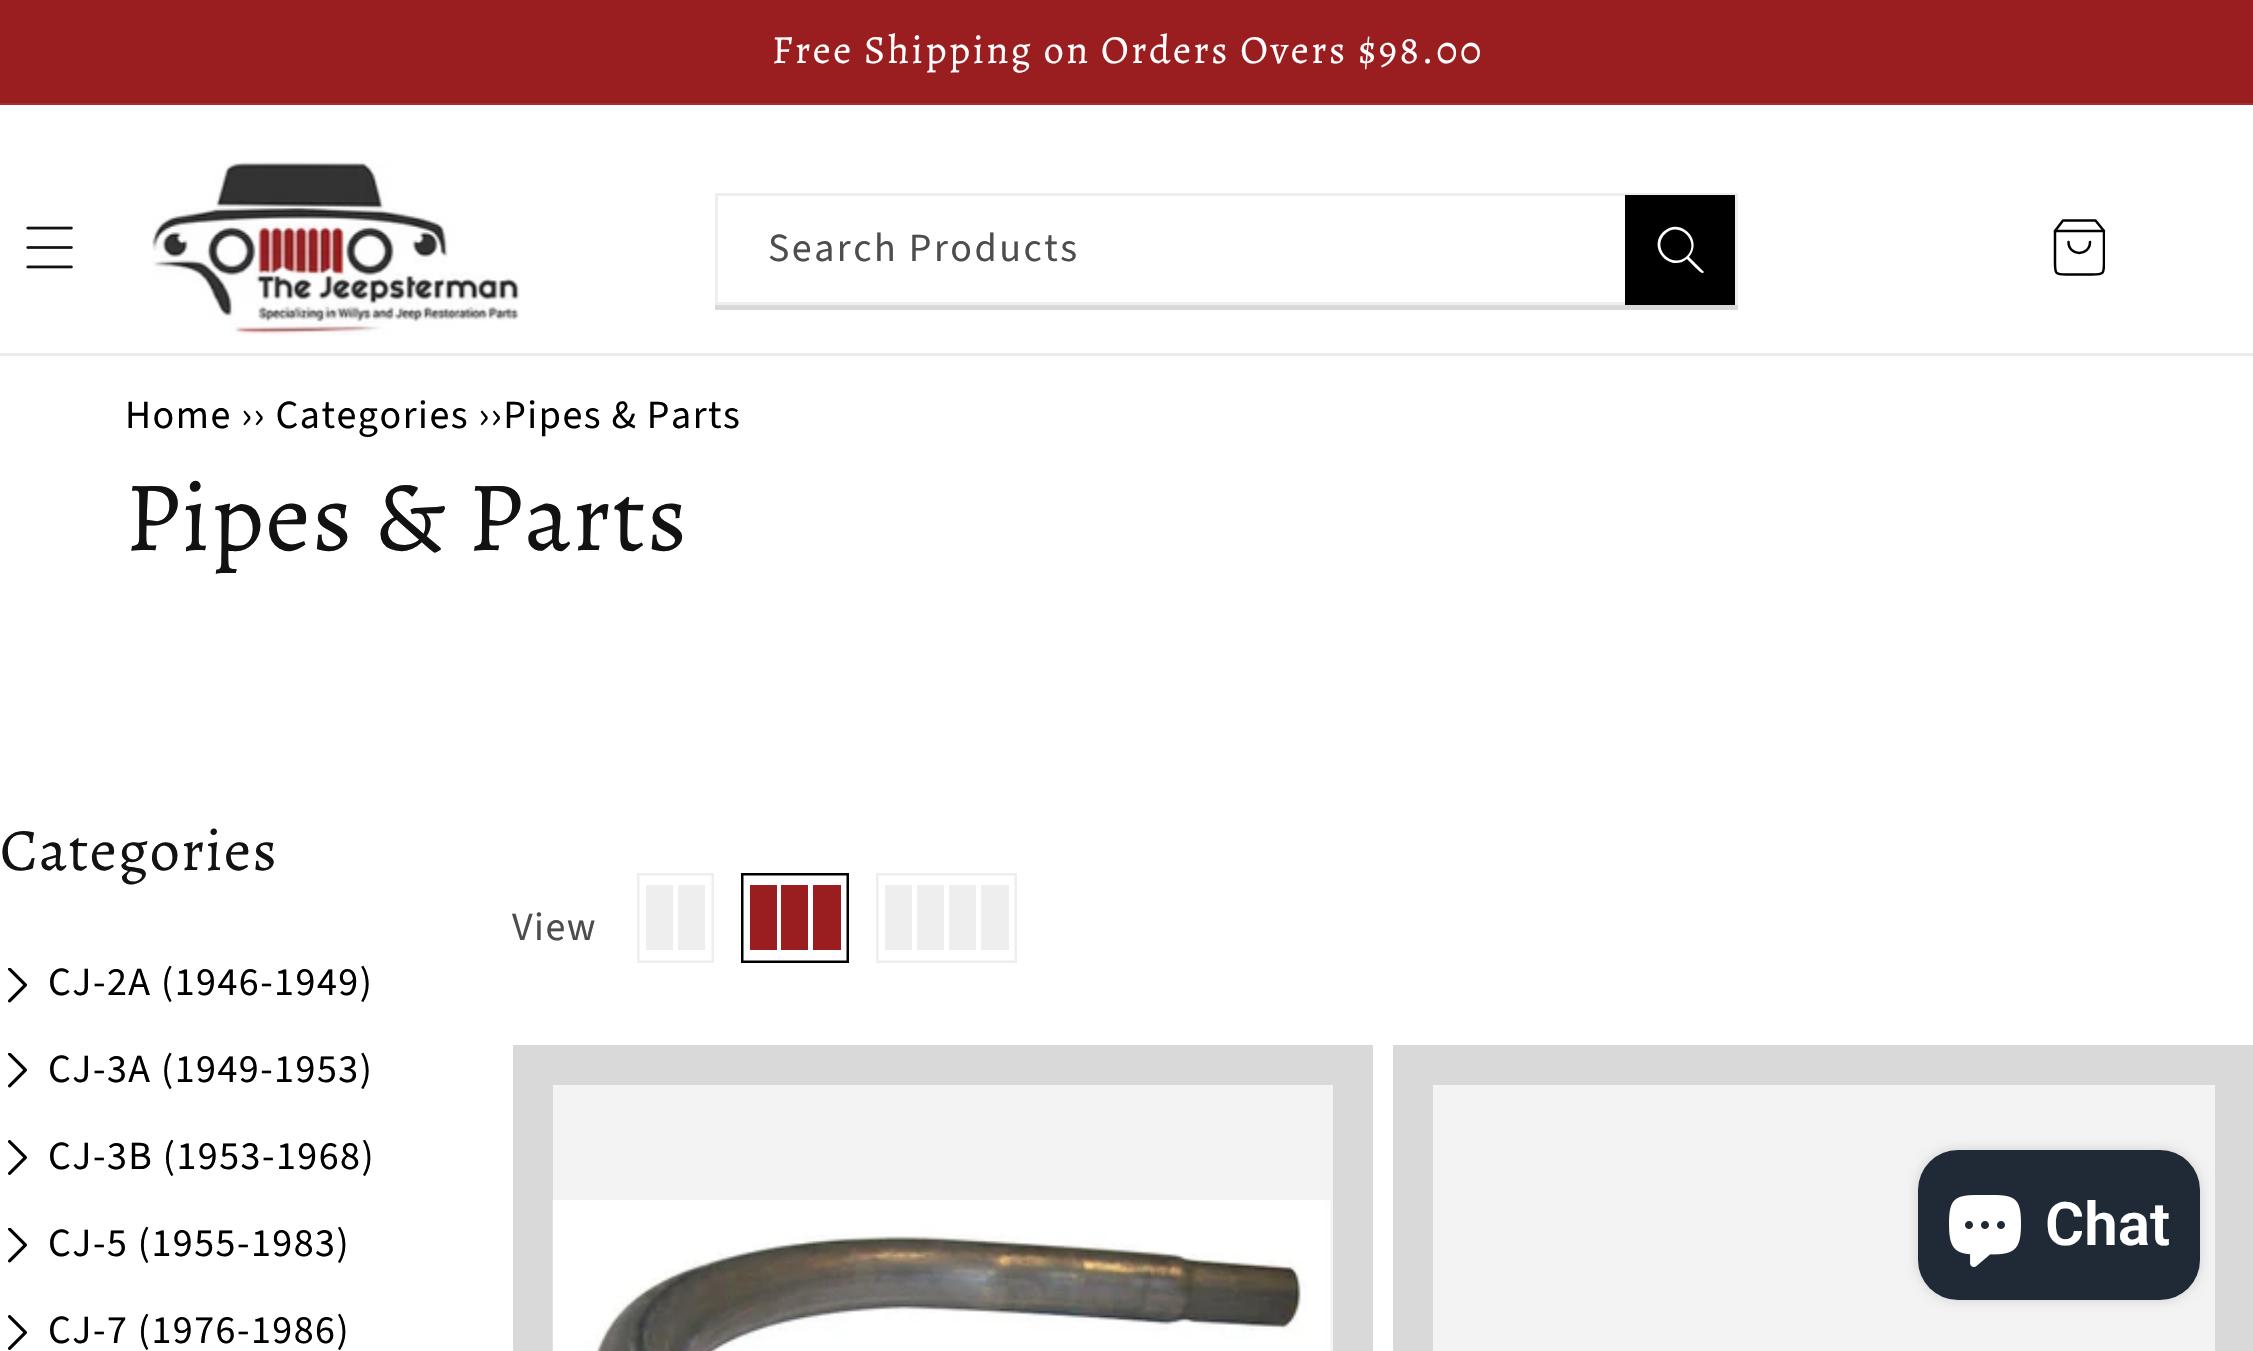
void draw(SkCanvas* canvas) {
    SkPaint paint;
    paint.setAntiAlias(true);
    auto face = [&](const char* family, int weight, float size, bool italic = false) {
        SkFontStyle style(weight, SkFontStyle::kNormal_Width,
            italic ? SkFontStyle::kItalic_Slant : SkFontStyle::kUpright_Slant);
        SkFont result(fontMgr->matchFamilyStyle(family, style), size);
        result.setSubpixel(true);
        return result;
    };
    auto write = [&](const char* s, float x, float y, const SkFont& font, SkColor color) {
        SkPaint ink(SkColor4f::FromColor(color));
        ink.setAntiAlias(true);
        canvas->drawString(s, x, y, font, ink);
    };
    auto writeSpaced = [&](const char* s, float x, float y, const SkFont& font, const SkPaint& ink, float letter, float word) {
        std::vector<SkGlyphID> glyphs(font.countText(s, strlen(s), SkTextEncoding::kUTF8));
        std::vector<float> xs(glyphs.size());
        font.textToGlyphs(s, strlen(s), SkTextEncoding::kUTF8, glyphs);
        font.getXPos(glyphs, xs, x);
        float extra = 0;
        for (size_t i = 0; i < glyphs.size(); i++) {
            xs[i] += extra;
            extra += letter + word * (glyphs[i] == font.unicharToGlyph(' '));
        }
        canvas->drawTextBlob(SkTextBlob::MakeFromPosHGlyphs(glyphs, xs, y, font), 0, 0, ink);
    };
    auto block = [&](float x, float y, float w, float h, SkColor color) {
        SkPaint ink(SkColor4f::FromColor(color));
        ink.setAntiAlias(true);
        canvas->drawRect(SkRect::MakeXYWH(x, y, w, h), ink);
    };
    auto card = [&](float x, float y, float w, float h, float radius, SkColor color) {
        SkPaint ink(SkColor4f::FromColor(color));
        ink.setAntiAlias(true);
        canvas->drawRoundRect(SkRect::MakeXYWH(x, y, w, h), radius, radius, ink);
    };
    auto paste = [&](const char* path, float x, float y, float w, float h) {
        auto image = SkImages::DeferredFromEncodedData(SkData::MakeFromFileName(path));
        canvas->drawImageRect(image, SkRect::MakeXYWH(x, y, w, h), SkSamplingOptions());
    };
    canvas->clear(SK_ColorWHITE);
    block(0, 0, 2253, 103, SkColorSetRGB(154, 29, 32));
    block(0, 103, 2253, 2, SkColorSetRGB(162, 47, 50));
    auto kFont1 = face("Alegreya", 400, 40);
    paint.setColor(SK_ColorWHITE);
    writeSpaced("Free Shipping on Orders Overs $98.00", 772, 63, kFont1, paint, 2.5f, 0);
    block(0, 353, 2253, 3, SkColorSetRGB(236, 236, 236));
    paste("pic1.png", 26, 226, 47, 43);
    paste("pic2.png", 151, 160, 369, 175);
    paint.setColor(SkColorSetRGB(217, 217, 217));
    canvas->drawPath(SkPathBuilder().moveTo(715, 305).lineTo(715, 310).lineTo(1738, 310).lineTo(1738, 198).lineTo(1738, 305).close().detach(), paint);
    paint.setStyle(SkPaint::kStroke_Style);
    paint.setStrokeWidth(3);
    paint.setColor(SkColorSetRGB(238, 238, 238));
    canvas->drawRect(SkRect::MakeXYWH(716.5f, 194.5f, 1020, 109), paint);
    auto kFont2 = face("Source Sans Pro", 400, 40);
    paint.setStyle(SkPaint::kFill_Style);
    paint.setColor(SkColorSetRGB(77, 77, 77));
    writeSpaced("Search Products", 768, 261, kFont2, paint, 2.5f, 0);
    block(1625, 195, 110, 110, SK_ColorBLACK);
    paint.setColor(SK_ColorWHITE);
    canvas->drawPath(SkPathBuilder(SkPathFillType::kEvenOdd).moveTo(1687, 256).cubicTo(1672, 270, 1651, 248, 1665, 234).cubicTo(1679, 220, 1701, 242, 1687, 256).close().moveTo(1687, 259).cubicTo(1670, 273, 1647, 248, 1663, 232).cubicTo(1680, 216, 1704, 240, 1689, 257).lineTo(1704, 272).lineTo(1703, 273).cubicTo(1701, 274, 1689, 261, 1687, 259).close().detach(), paint);
    canvas->save();
    canvas->clipRect(SkRect::MakeXYWH(2053, 218, 52, 60));
    paint.setStyle(SkPaint::kStroke_Style);
    paint.setStrokeWidth(2.5f);
    paint.setStrokeCap(SkPaint::kRound_Cap);
    paint.setStrokeJoin(SkPaint::kRound_Join);
    paint.setColor(SK_ColorBLACK);
    canvas->drawPath(SkPathBuilder().moveTo(2063, 220.5f).lineTo(2055, 231).lineTo(2055, 263).cubicTo(2055, 274, 2055.5f, 274.5f, 2066.5f, 274.5f).lineTo(2092, 274.5f).cubicTo(2103.5f, 274.5f, 2104, 274, 2104, 263).lineTo(2104, 231).lineTo(2095.5f, 220.5f).close().detach(), paint);
    canvas->restore();
    canvas->drawPath(SkPathBuilder().moveTo(2055, 231).lineTo(2104, 231).moveTo(2090, 242).cubicTo(2090, 256.5f, 2068.5f, 256.5f, 2068.5f, 242).detach(), paint);
    paint.setStyle(SkPaint::kFill_Style);
    writeSpaced("Home ›› Categories ››Pipes & Parts", 125, 428, kFont2, paint, 1.5f, 0);
    auto kFont3 = face("Alegreya", 400, 100);
    paint.setColor(SkColorSetRGB(18, 18, 18));
    writeSpaced("Pipes & Parts", 125, 550, kFont3, paint, 1.5f, 0);
    auto kFont4 = face("Alegreya", 400, 60);
    writeSpaced("Categories", 0, 870, kFont4, paint, 1.5f, 0);
    paste("pic3.png", 8, 968, 19, 35);
    paint.setColor(SK_ColorBLACK);
    writeSpaced("CJ-2A (1946-1949)", 48, 995, kFont2, paint, 1.5f, 0);
    paste("pic3.png", 8, 1053, 19, 35);
    writeSpaced("CJ-3A (1949-1953)", 48, 1082, kFont2, paint, 1.5f, 0);
    paste("pic4.png", 8, 1140, 19, 35);
    writeSpaced("CJ-3B (1953-1968)", 48, 1169, kFont2, paint, 1.5f, 0);
    paste("pic3.png", 8, 1228, 19, 35);
    writeSpaced("CJ-5 (1955-1983)", 48, 1256, kFont2, paint, 1.5f, 0);
    paste("pic4.png", 8, 1315, 19, 35);
    writeSpaced("CJ-7 (1976-1986)", 48, 1343, kFont2, paint, 1.5f, 0);
    paint.setColor(SkColorSetRGB(77, 77, 77));
    writeSpaced("View", 512, 940, kFont2, paint, 1.5f, 0);
    paint.setStyle(SkPaint::kStroke_Style);
    paint.setStrokeCap(SkPaint::kButt_Cap);
    paint.setStrokeJoin(SkPaint::kMiter_Join);
    paint.setColor(SkColorSetRGB(238, 238, 238));
    canvas->drawRect(SkRect::MakeXYWH(638.25f, 874.25f, 74.5f, 87.5f), paint);
    block(646, 885, 27, 65, SkColorSetRGB(238, 238, 238));
    block(678, 885, 27, 65, SkColorSetRGB(238, 238, 238));
    paint.setColor(SK_ColorBLACK);
    canvas->drawRect(SkRect::MakeXYWH(742.25f, 874.25f, 105.5f, 87.5f), paint);
    block(750, 885, 27, 65, SkColorSetRGB(154, 29, 32));
    block(781, 885, 27, 65, SkColorSetRGB(154, 29, 32));
    block(813, 885, 28, 65, SkColorSetRGB(154, 29, 32));
    paint.setColor(SkColorSetRGB(238, 238, 238));
    canvas->drawRect(SkRect::MakeXYWH(877.25f, 874.25f, 138.5f, 87.5f), paint);
    block(885, 885, 27, 65, SkColorSetRGB(238, 238, 238));
    block(917, 885, 27, 65, SkColorSetRGB(238, 238, 238));
    block(949, 885, 27, 65, SkColorSetRGB(238, 238, 238));
    block(981, 885, 28, 65, SkColorSetRGB(238, 238, 238));
    block(513, 1045, 860, 306, SkColorSetRGB(217, 217, 217));
    block(553, 1085, 780, 266, SkColorSetRGB(243, 243, 243));
    paste("pic5.png", 552, 1200, 779, 151);
    block(1393, 1045, 860, 306, SkColorSetRGB(217, 217, 217));
    block(1433, 1085, 782, 266, SkColorSetRGB(243, 243, 243));
    paint.setStyle(SkPaint::kFill_Style);
    paint.setColor(SkColorSetARGB(38, 0, 0, 0));
    paint.setMaskFilter(SkMaskFilter::MakeBlur(kNormal_SkBlurStyle, 6));
    canvas->drawRoundRect(SkRect::MakeXYWH(1918, 1150, 282, 150), 40, 40, paint);
    paint.setMaskFilter(nullptr);
    card(1918, 1150, 282, 150, 40, SkColorSetRGB(32, 42, 54));
    paste("pic6.png", 1949, 1195, 72, 72);
    auto kFont5 = face("Roboto", 600, 60);
    write("Chat", 2045, 1245, kFont5, SK_ColorWHITE);
}
